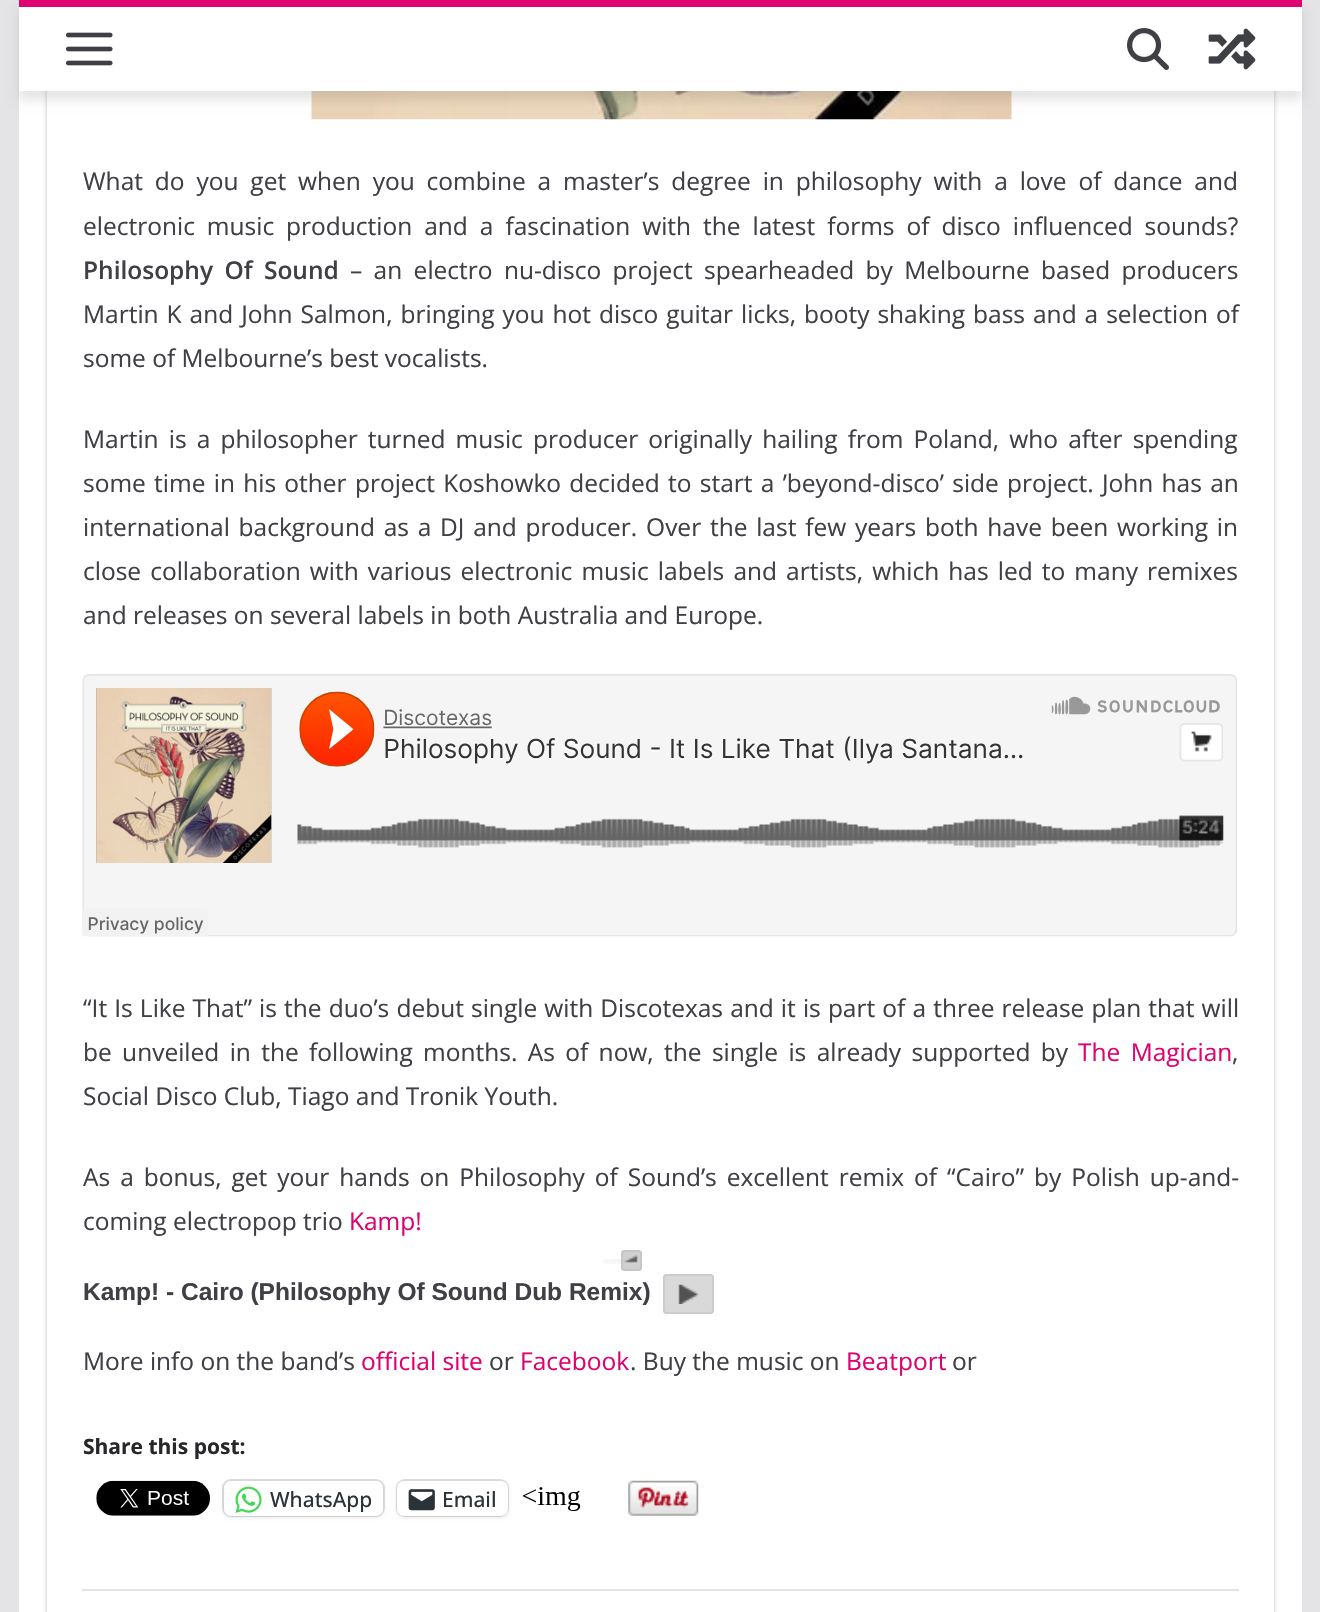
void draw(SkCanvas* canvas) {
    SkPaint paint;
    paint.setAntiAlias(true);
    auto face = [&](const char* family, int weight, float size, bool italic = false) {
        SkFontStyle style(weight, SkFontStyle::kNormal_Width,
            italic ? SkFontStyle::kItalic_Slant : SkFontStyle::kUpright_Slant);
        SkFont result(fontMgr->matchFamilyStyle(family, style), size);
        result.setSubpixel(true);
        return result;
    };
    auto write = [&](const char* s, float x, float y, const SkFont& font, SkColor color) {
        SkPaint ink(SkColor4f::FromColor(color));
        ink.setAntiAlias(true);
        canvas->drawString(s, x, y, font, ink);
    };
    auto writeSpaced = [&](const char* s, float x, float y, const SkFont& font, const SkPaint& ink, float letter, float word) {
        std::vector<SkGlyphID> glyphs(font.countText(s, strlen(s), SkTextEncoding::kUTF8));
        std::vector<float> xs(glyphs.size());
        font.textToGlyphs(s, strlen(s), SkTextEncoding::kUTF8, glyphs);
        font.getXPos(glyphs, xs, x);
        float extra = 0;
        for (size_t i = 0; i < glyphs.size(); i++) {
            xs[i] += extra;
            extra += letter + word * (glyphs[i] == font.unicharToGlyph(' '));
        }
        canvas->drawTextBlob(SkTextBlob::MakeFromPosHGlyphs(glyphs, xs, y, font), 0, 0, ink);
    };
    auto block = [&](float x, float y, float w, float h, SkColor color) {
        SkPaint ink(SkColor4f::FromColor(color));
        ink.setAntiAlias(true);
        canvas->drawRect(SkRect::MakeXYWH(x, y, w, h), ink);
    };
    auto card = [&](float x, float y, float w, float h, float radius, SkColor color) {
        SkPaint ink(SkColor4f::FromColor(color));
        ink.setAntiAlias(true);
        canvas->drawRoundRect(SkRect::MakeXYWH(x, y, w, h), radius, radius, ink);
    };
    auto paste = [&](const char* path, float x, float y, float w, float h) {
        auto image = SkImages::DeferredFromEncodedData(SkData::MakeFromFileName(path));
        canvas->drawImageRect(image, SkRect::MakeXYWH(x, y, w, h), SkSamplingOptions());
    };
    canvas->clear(SkColorSetRGB(228, 228, 231));
    block(19, 91, 1283, 1521, SK_ColorWHITE);
    canvas->save();
    canvas->clipPath(SkPathBuilder(SkPathFillType::kEvenOdd).moveTo(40, 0).lineTo(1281, 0).lineTo(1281, 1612).lineTo(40, 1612).close().moveTo(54, -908).lineTo(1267, -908).cubicTo(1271, -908, 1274, -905, 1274, -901).lineTo(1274, 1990).cubicTo(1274, 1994, 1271, 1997, 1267, 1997).lineTo(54, 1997).cubicTo(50, 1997, 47, 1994, 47, 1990).lineTo(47, -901).cubicTo(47, -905, 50, -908, 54, -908).close().detach(), true);
    paint.setColor(SkColorSetARGB(61, 0, 0, 0));
    paint.setMaskFilter(SkMaskFilter::MakeBlur(kNormal_SkBlurStyle, 2));
    canvas->drawRoundRect(SkRect::MakeXYWH(47, -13, 1227, 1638), 7, 7, paint);
    paint.setMaskFilter(nullptr);
    canvas->restore();
    paste("pic4.png", 311, 91, 701, 29);
    paint.setColor(SkColorSetARGB(26, 0, 0, 0));
    paint.setMaskFilter(SkMaskFilter::MakeBlur(kNormal_SkBlurStyle, 5));
    canvas->drawRect(SkRect::MakeXYWH(19, 9, 1283, 91), paint);
    paint.setMaskFilter(nullptr);
    block(19, 7, 1283, 84, SK_ColorWHITE);
    block(19, 0, 1283, 7, SkColorSetRGB(223, 3, 113));
    paste("pic1.png", 66, 32, 47, 34);
    paste("pic2.png", 1127, 28, 42, 42);
    paste("pic3.png", 1208, 28, 48, 42);
    auto kFont1 = face("Open Sans", 400, 24.5f);
    paint.setColor(SkColorSetRGB(63, 63, 70));
    writeSpaced("What do you get when you combine a master’s degree in philosophy with a love of dance and", 83, 190, kFont1, paint, 0, 5.5f);
    writeSpaced("electronic music production and a fascination with the latest forms of disco influenced sounds?", 83, 235, kFont1, paint, 0, 5.6f);
    auto kFont2 = face("Open Sans", 600, 24.5f);
    writeSpaced("Philosophy Of Sound", 83, 279, kFont2, paint, 0, 5);
    writeSpaced("– an electro nu-disco project spearheaded by Melbourne based producers", 350, 279, kFont1, paint, 0, 5);
    writeSpaced("Martin K and John Salmon, bringing you hot disco guitar licks, booty shaking bass and a selection of", 83, 323, kFont1, paint, 0, 1.6f);
    write("some of Melbourne’s best vocalists.", 83, 367, kFont1, SkColorSetRGB(63, 63, 70));
    writeSpaced("Martin is a philosopher turned music producer originally hailing from Poland, who after spending", 83, 448, kFont1, paint, 0, 3.75f);
    writeSpaced("some time in his other project Koshowko decided to start a ’beyond-disco’ side project. John has an", 83, 492, kFont1, paint, 0, 1.9f);
    writeSpaced("international background as a DJ and producer. Over the last few years both have been working in", 83, 536, kFont1, paint, 0, 2.4f);
    writeSpaced("close collaboration with various electronic music labels and artists, which has led to many remixes", 83, 580, kFont1, paint, 0, 2.75f);
    write("and releases on several labels in both Australia and Europe.", 83, 624, kFont1, SkColorSetRGB(63, 63, 70));
    paste("pic5.png", 82, 674, 1155, 263);
    writeSpaced("“It Is Like That” is the duo’s debut single with Discotexas and it is part of a three release plan that will", 83, 1017, kFont1, paint, 0, 0.75f);
    writeSpaced("be unveiled in the following months. As of now, the single is already supported by", 83, 1061, kFont1, paint, 0, 4);
    paint.setColor(SkColorSetRGB(223, 3, 113));
    writeSpaced("The Magician", 1078, 1061, kFont1, paint, 0, 4);
    write(",", 1232, 1061, kFont1, SkColorSetRGB(63, 63, 70));
    write("Social Disco Club, Tiago and Tronik Youth.", 83, 1105, kFont1, SkColorSetRGB(63, 63, 70));
    paint.setColor(SkColorSetRGB(63, 63, 70));
    writeSpaced("As a bonus, get your hands on Philosophy of Sound’s excellent remix of “Cairo” by Polish up-and-", 83, 1186, kFont1, paint, 0, 3.6f);
    write("coming electropop trio", 83, 1230, kFont1, SkColorSetRGB(63, 63, 70));
    write("Kamp!", 349, 1230, kFont1, SkColorSetRGB(223, 3, 113));
    paste("pic6.png", 603, 1259, 18, 5);
    card(621, 1250, 21, 21, 4, SkColorSetRGB(208, 208, 208));
    paste("pic7.png", 624, 1254, 14, 9);
    paint.setStyle(SkPaint::kStroke_Style);
    paint.setStrokeWidth(2);
    paint.setColor(SkColorSetRGB(198, 198, 198));
    canvas->drawRoundRect(SkRect::MakeXYWH(622, 1251, 19, 19), 3, 3, paint);
    card(663, 1274, 51, 40, 4, SkColorSetRGB(217, 217, 217));
    auto kFont3 = face("Liberation Sans", 700, 24.5f);
    write("Kamp! - Cairo (Philosophy Of Sound Dub Remix)", 83, 1300, kFont3, SkColorSetRGB(63, 63, 70));
    paste("pic8.png", 678, 1284, 21, 20);
    paint.setColor(SkColorSetRGB(204, 204, 204));
    canvas->drawRoundRect(SkRect::MakeXYWH(664, 1275, 49, 38), 3, 3, paint);
    write("More info on the band’s", 83, 1370, kFont1, SkColorSetRGB(63, 63, 70));
    write("official site", 361, 1370, kFont1, SkColorSetRGB(223, 3, 113));
    write("or", 489, 1370, kFont1, SkColorSetRGB(63, 63, 70));
    write("Facebook", 520, 1370, kFont1, SkColorSetRGB(223, 3, 113));
    write(". Buy the music on", 630, 1370, kFont1, SkColorSetRGB(63, 63, 70));
    write("Beatport", 846, 1370, kFont1, SkColorSetRGB(223, 3, 113));
    write("or", 952, 1370, kFont1, SkColorSetRGB(63, 63, 70));
    auto kFont4 = face("Open Sans", 700, 21);
    write("Share this post:", 83, 1454, kFont4, SkColorSetRGB(39, 39, 42));
    paste("pic9.png", 96, 1480, 114, 36);
    paint.setColor(SkColorSetRGB(224, 224, 224));
    canvas->drawRoundRect(SkRect::MakeXYWH(223, 1480, 161, 36), 8, 8, paint);
    paint.setStyle(SkPaint::kFill_Style);
    paint.setColor(SkColorSetARGB(31, 0, 0, 0));
    paint.setMaskFilter(SkMaskFilter::MakeBlur(kNormal_SkBlurStyle, 2));
    canvas->drawRoundRect(SkRect::MakeXYWH(224, 1482, 159, 35), 7, 7, paint);
    paint.setMaskFilter(nullptr);
    card(224, 1481, 159, 35, 7, SK_ColorWHITE);
    paste("pic10.png", 235, 1486, 27, 27);
    auto kFont5 = face("Open Sans", 500, 21);
    write("WhatsApp", 270, 1507, kFont5, SkColorSetRGB(44, 51, 56));
    paint.setStyle(SkPaint::kStroke_Style);
    paint.setColor(SkColorSetRGB(224, 224, 224));
    canvas->drawRoundRect(SkRect::MakeXYWH(397, 1480, 111, 36), 8, 8, paint);
    paint.setStyle(SkPaint::kFill_Style);
    paint.setColor(SkColorSetARGB(31, 0, 0, 0));
    paint.setMaskFilter(SkMaskFilter::MakeBlur(kNormal_SkBlurStyle, 2));
    canvas->drawRoundRect(SkRect::MakeXYWH(397, 1482, 111, 35), 7, 7, paint);
    paint.setMaskFilter(nullptr);
    card(397, 1481, 111, 35, 7, SK_ColorWHITE);
    paste("pic11.png", 408, 1489, 27, 22);
    write("Email", 442, 1507, kFont5, SkColorSetRGB(44, 51, 56));
    paste("pic12.png", 522, 1487, 59, 24);
    paste("pic13.png", 628, 1480, 71, 36);
    block(82, 1589, 1157, 2, SkColorSetRGB(228, 228, 231));
}
